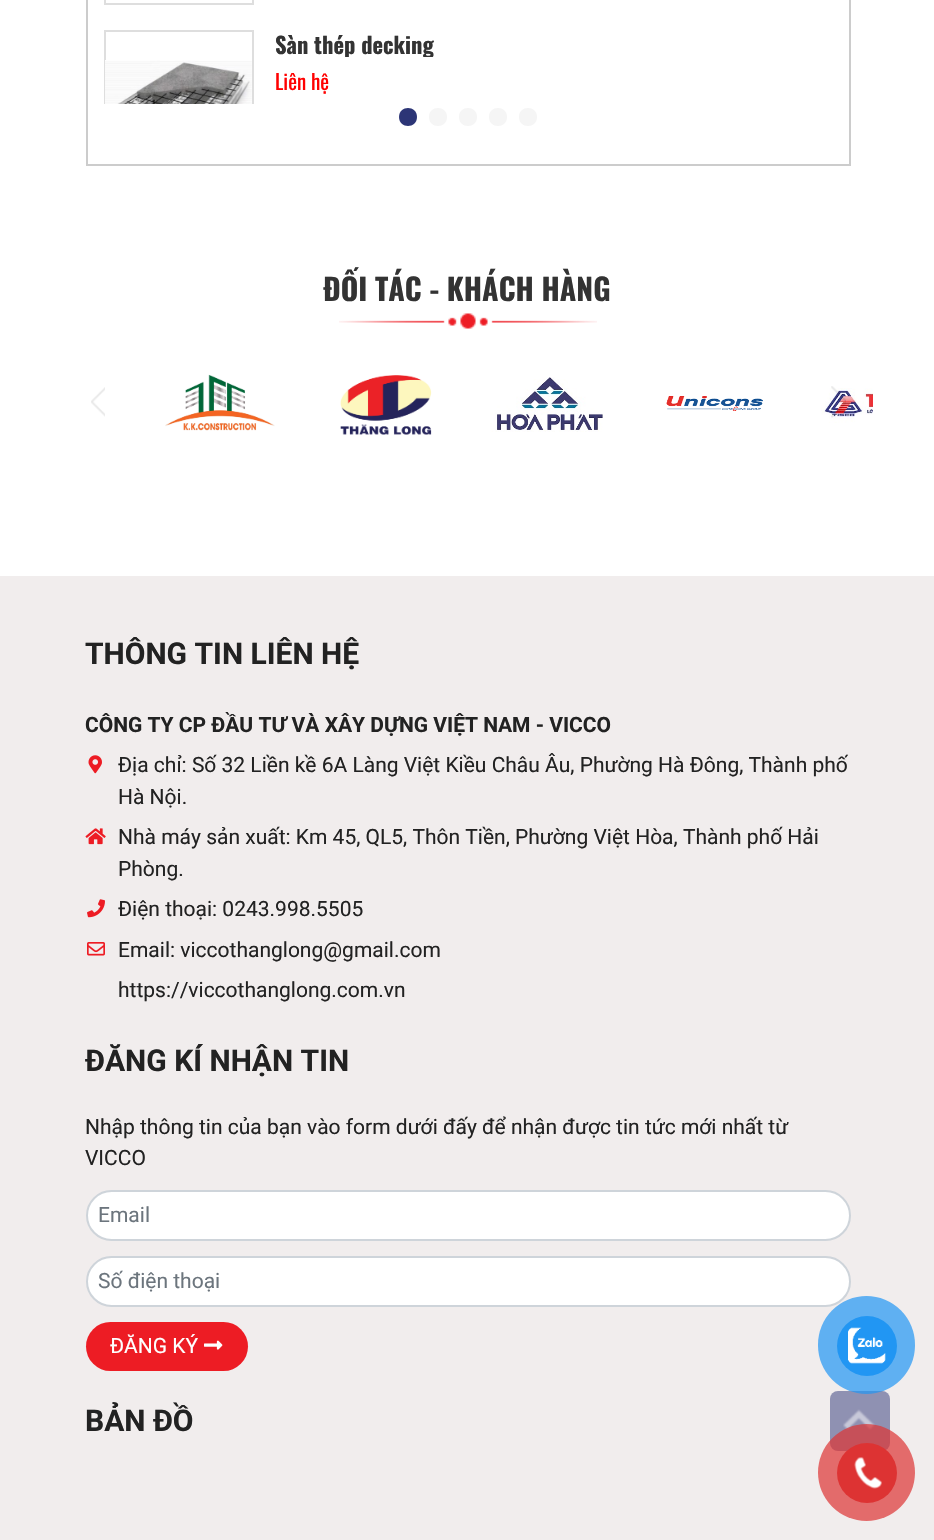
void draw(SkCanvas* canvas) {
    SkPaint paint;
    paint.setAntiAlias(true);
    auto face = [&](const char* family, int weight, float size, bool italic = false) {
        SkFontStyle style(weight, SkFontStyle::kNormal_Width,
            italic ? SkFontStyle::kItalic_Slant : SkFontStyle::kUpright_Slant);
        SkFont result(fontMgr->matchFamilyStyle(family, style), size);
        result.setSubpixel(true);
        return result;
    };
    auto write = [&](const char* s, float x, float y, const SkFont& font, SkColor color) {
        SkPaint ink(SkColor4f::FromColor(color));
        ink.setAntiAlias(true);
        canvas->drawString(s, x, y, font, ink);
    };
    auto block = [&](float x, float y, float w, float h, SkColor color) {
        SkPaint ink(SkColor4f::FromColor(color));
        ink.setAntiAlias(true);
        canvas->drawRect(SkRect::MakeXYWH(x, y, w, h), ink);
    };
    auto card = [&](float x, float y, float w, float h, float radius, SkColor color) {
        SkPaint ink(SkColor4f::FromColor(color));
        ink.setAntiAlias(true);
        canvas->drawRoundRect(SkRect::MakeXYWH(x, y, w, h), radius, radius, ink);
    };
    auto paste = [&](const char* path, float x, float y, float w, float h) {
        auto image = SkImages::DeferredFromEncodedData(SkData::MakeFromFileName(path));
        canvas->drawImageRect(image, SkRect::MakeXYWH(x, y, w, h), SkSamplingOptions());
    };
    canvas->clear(SK_ColorWHITE);
    block(849, 0, 2, 165, SkColorSetRGB(204, 204, 204));
    block(86, 164, 765, 2, SkColorSetRGB(204, 204, 204));
    block(86, 0, 2, 165, SkColorSetRGB(204, 204, 204));
    paint.setStyle(SkPaint::kStroke_Style);
    paint.setStrokeWidth(2);
    paint.setColor(SkColorSetRGB(222, 222, 222));
    canvas->drawRect(SkRect::MakeXYWH(105, -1, 148, 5), paint);
    canvas->save();
    canvas->clipRect(SkRect::MakeXYWH(81, 30, 774, 74));
    canvas->drawRect(SkRect::MakeXYWH(105, 31, 148, 148), paint);
    canvas->restore();
    paste("pic1.png", 105, 60, 147, 44);
    canvas->save();
    canvas->clipRect(SkRect::MakeXYWH(276, 30, 557, 27));
    auto kFont1 = face("Oswald", 700, 22.5f);
    write("Sàn thép decking", 275, 54, kFont1, SkColorSetRGB(51, 51, 51));
    canvas->restore();
    auto kFont2 = face("Oswald", 400, 21);
    write("Liên hệ", 275, 90, kFont2, SkColorSetRGB(255, 0, 0));
    paint.setStyle(SkPaint::kFill_Style);
    paint.setColor(SkColorSetRGB(44, 53, 118));
    canvas->drawPath(SkPathBuilder().moveTo(417, 117).cubicTo(417, 105, 399, 105, 399, 117).cubicTo(399, 129, 417, 129, 417, 117).close().detach(), paint);
    paint.setColor(SkColorSetRGB(245, 245, 245));
    canvas->drawPath(SkPathBuilder().moveTo(447, 117).cubicTo(447, 105, 429, 105, 429, 117).cubicTo(429, 129, 447, 129, 447, 117).close().moveTo(477, 117).cubicTo(477, 105, 459, 105, 459, 117).cubicTo(459, 129, 477, 129, 477, 117).close().detach(), paint);
    canvas->drawPath(SkPathBuilder().moveTo(507, 117).cubicTo(507, 105, 489, 105, 489, 117).cubicTo(489, 129, 507, 129, 507, 117).close().moveTo(537, 117).cubicTo(537, 105, 519, 105, 519, 117).cubicTo(519, 129, 537, 129, 537, 117).close().detach(), paint);
    auto kFont3 = face("Oswald", 700, 30);
    write("ĐỐI TÁC - KHÁCH HÀNG", 323, 301, kFont3, SkColorSetRGB(51, 51, 51));
    paste("pic2.png", 339, 313, 258, 16);
    paste("pic3.png", 165, 374, 110, 57);
    paste("pic4.png", 340, 375, 92, 60);
    paste("pic5.png", 490, 377, 113, 55);
    paste("pic6.png", 666, 396, 97, 15);
    paste("pic7.png", 821, 388, 52, 35);
    paste("pic8.png", 91, 387, 14, 30);
    paste("pic9.png", 831, 386, 15, 32);
    block(0, 576, 934, 964, SkColorSetRGB(241, 237, 237));
    auto kFont4 = face("Roboto", 700, 30);
    write("THÔNG TIN LIÊN HỆ", 85, 664, kFont4, SkColorSetRGB(34, 34, 34));
    auto kFont5 = face("Roboto", 700, 21);
    write("CÔNG TY CP ĐẦU TƯ VÀ XÂY DỰNG VIỆT NAM - VICCO", 85, 732, kFont5, SkColorSetRGB(34, 34, 34));
    paste("pic10.png", 88, 755, 14, 19);
    auto kFont6 = face("Roboto", 400, 21);
    write("Địa chỉ: Số 32 Liền kề 6A Làng Việt Kiều Châu Âu, Phường Hà Đông, Thành phố", 118, 772, kFont6, SkColorSetRGB(34, 34, 34));
    write("Hà Nội.", 118, 804, kFont6, SkColorSetRGB(34, 34, 34));
    paste("pic11.png", 85, 828, 21, 17);
    write("Nhà máy sản xuất: Km 45, QL5, Thôn Tiền, Phường Việt Hòa, Thành phố Hải", 118, 844, kFont6, SkColorSetRGB(34, 34, 34));
    write("Phòng.", 118, 876, kFont6, SkColorSetRGB(34, 34, 34));
    paste("pic12.png", 87, 899, 18, 19);
    write("Điện thoại: 0243.998.5505", 118, 916, kFont6, SkColorSetRGB(34, 34, 34));
    paste("pic13.png", 87, 942, 18, 14);
    write("Email: viccothanglong@gmail.com", 118, 957, kFont6, SkColorSetRGB(34, 34, 34));
    write("https://viccothanglong.com.vn", 118, 997, kFont6, SkColorSetRGB(34, 34, 34));
    write("ĐĂNG KÍ NHẬN TIN", 85, 1071, kFont4, SkColorSetRGB(34, 34, 34));
    write("Nhập thông tin của bạn vào form dưới đấy để nhận được tin tức mới nhất từ", 85, 1134, kFont6, SkColorSetRGB(34, 34, 34));
    write("VICCO", 85, 1165, kFont6, SkColorSetRGB(34, 34, 34));
    paint.setColor(SK_ColorWHITE);
    canvas->drawRoundRect(SkRect::MakeXYWH(87, 1191, 763, 49), 24.5f, 24.5f, paint);
    paint.setStyle(SkPaint::kStroke_Style);
    paint.setColor(SkColorSetRGB(206, 212, 218));
    canvas->drawRoundRect(SkRect::MakeXYWH(87, 1191, 763, 49), 24.5f, 24.5f, paint);
    write("Email", 98, 1222, kFont6, SkColorSetRGB(108, 117, 125));
    paint.setStyle(SkPaint::kFill_Style);
    paint.setColor(SK_ColorWHITE);
    canvas->drawRoundRect(SkRect::MakeXYWH(87, 1257, 763, 49), 24.5f, 24.5f, paint);
    paint.setStyle(SkPaint::kStroke_Style);
    paint.setColor(SkColorSetRGB(206, 212, 218));
    canvas->drawRoundRect(SkRect::MakeXYWH(87, 1257, 763, 49), 24.5f, 24.5f, paint);
    write("Số điện thoại", 98, 1288, kFont6, SkColorSetRGB(108, 117, 125));
    card(86, 1322, 162, 49, 24.5f, SkColorSetRGB(237, 28, 36));
    write("ĐĂNG KÝ", 110, 1353, kFont6, SK_ColorWHITE);
    paste("pic14.png", 204, 1340, 19, 10);
    write("BẢN ĐỒ", 85, 1431, kFont4, SkColorSetRGB(34, 34, 34));
    card(830, 1391, 60, 60, 8, SkColorSetRGB(143, 145, 178));
    paste("pic15.png", 843, 1409, 32, 21);
    card(818, 1296, 97, 98, 48.5f, SkColorSetARGB(179, 33, 150, 243));
    paint.setStyle(SkPaint::kFill_Style);
    paint.setColor(SkColorSetRGB(33, 150, 243));
    canvas->drawCircle(867, 1346, 30, paint);
    paste("pic16.png", 848, 1327, 38, 37);
    paint.setColor(SkColorSetARGB(179, 221, 51, 51));
    canvas->drawCircle(866.5f, 1472.5f, 48.5f, paint);
    paint.setColor(SkColorSetRGB(221, 51, 51));
    canvas->drawCircle(867, 1473, 30, paint);
    paste("pic17.png", 854, 1457, 28, 32);
}
